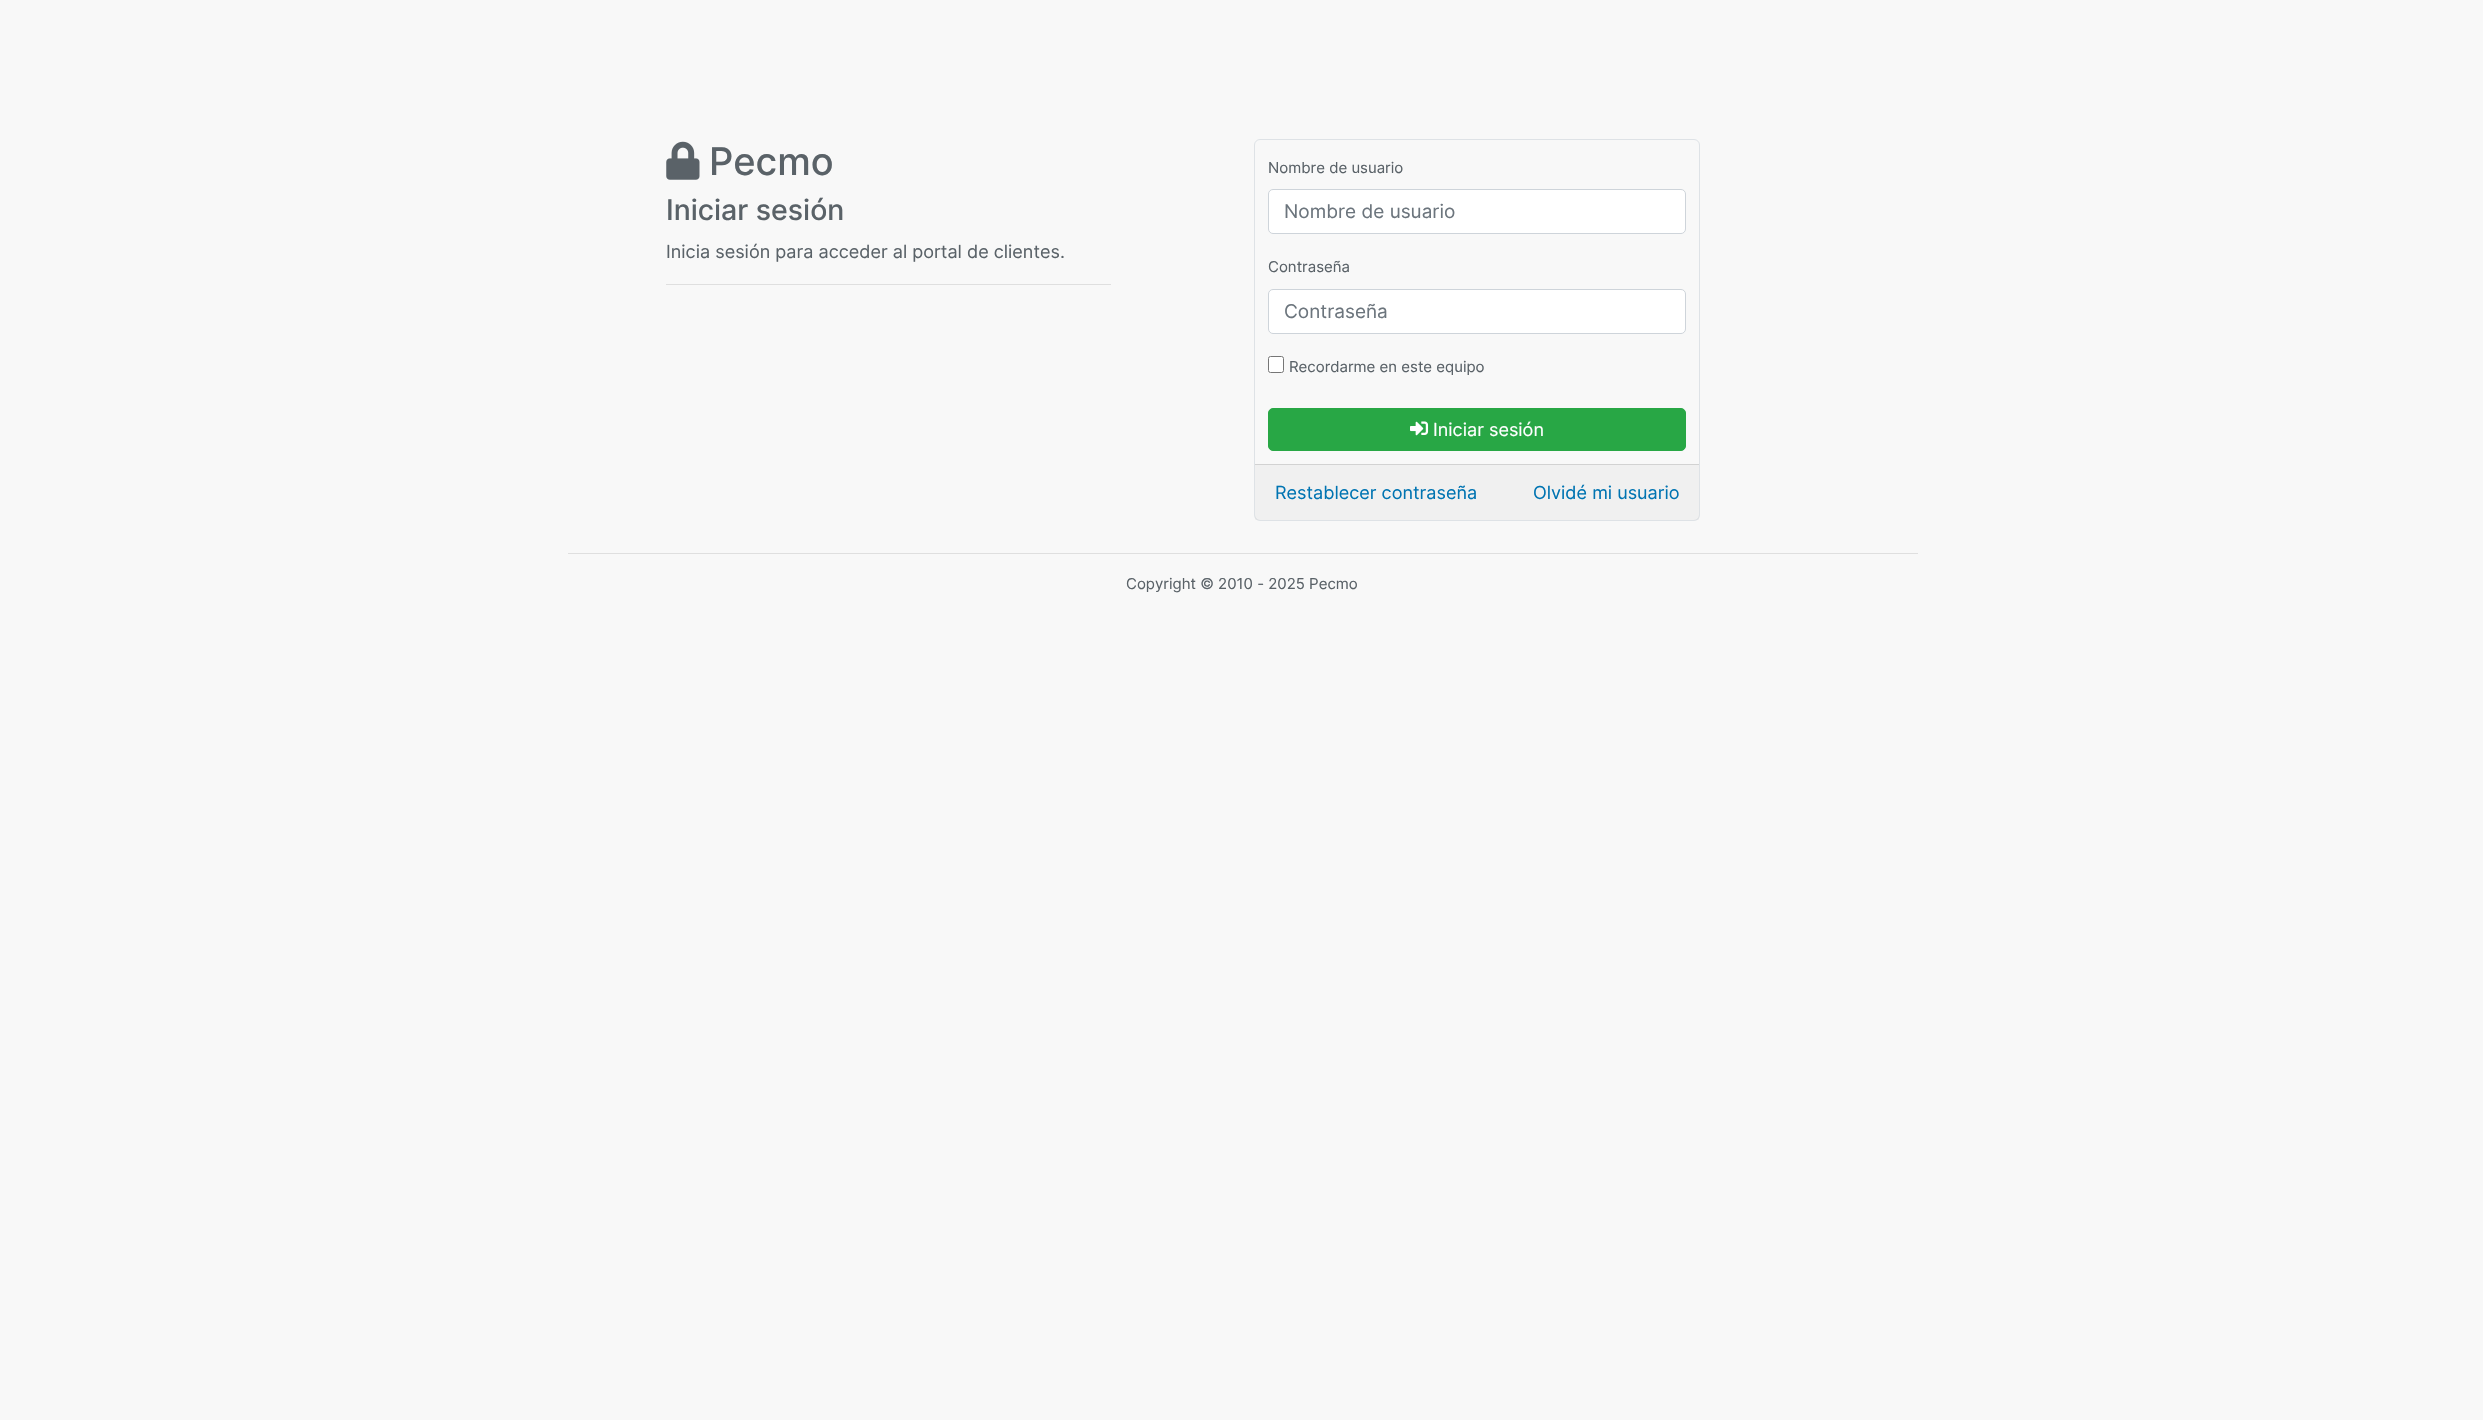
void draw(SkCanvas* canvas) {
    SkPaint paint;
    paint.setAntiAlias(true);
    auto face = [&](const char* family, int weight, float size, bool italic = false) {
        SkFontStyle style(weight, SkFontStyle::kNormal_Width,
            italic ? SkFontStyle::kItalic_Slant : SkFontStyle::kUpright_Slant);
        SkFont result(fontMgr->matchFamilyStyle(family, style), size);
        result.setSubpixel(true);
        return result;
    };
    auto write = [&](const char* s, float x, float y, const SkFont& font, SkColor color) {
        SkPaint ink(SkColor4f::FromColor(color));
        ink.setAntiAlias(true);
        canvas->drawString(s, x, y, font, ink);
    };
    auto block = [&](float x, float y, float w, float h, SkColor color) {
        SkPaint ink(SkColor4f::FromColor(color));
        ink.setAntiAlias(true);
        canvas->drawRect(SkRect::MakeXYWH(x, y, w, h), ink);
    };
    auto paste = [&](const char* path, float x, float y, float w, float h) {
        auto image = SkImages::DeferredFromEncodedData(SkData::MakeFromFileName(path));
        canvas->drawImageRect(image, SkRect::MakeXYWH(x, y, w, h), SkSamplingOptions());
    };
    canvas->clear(SkColorSetRGB(248, 248, 248));
    paste("pic1.png", 666, 141, 34, 39);
    auto kFont1 = face("Inter", 500, 38);
    write("Pecmo", 709, 175, kFont1, SkColorSetRGB(90, 98, 104));
    auto kFont2 = face("Inter", 500, 28.5f);
    write("Iniciar sesión", 666, 220, kFont2, SkColorSetRGB(90, 98, 104));
    auto kFont3 = face("Inter", 400, 18.05f);
    write("Inicia sesión para acceder al portal de clientes.", 666, 258, kFont3, SkColorSetRGB(90, 98, 104));
    block(666, 284, 445, 1, SkColorSetRGB(223, 223, 223));
    paint.setStyle(SkPaint::kStroke_Style);
    paint.setStrokeWidth(1);
    paint.setColor(SkColorSetRGB(222, 226, 230));
    canvas->drawRoundRect(SkRect::MakeXYWH(1254.5f, 139.5f, 445, 381), 5.5f, 5.5f, paint);
    auto kFont4 = face("Inter", 400, 15);
    write("Nombre de usuario", 1268, 173, kFont4, SkColorSetRGB(90, 98, 104));
    paint.setStyle(SkPaint::kFill_Style);
    paint.setColor(SK_ColorWHITE);
    canvas->drawRoundRect(SkRect::MakeXYWH(1268.5f, 189.5f, 417, 44), 4.5f, 4.5f, paint);
    paint.setStyle(SkPaint::kStroke_Style);
    paint.setColor(SkColorSetRGB(206, 212, 218));
    canvas->drawRoundRect(SkRect::MakeXYWH(1268.5f, 189.5f, 417, 44), 4.5f, 4.5f, paint);
    auto kFont5 = face("Inter", 400, 19);
    write("Nombre de usuario", 1284, 218, kFont5, SkColorSetRGB(108, 117, 125));
    write("Contraseña", 1268, 272, kFont4, SkColorSetRGB(90, 98, 104));
    paint.setStyle(SkPaint::kFill_Style);
    paint.setColor(SK_ColorWHITE);
    canvas->drawRoundRect(SkRect::MakeXYWH(1268.5f, 289.5f, 417, 44), 4.5f, 4.5f, paint);
    paint.setStyle(SkPaint::kStroke_Style);
    paint.setColor(SkColorSetRGB(206, 212, 218));
    canvas->drawRoundRect(SkRect::MakeXYWH(1268.5f, 289.5f, 417, 44), 4.5f, 4.5f, paint);
    write("Contraseña", 1284, 318, kFont5, SkColorSetRGB(108, 117, 125));
    paint.setStyle(SkPaint::kFill_Style);
    paint.setColor(SK_ColorWHITE);
    canvas->drawRoundRect(SkRect::MakeXYWH(1268.5f, 356.5f, 15, 16), 2, 2, paint);
    paint.setStyle(SkPaint::kStroke_Style);
    paint.setColor(SkColorSetRGB(118, 118, 118));
    canvas->drawRoundRect(SkRect::MakeXYWH(1268.5f, 356.5f, 15, 16), 2, 2, paint);
    write("Recordarme en este equipo", 1289, 372, kFont4, SkColorSetRGB(90, 98, 104));
    paint.setStyle(SkPaint::kFill_Style);
    paint.setColor(SkColorSetRGB(40, 167, 69));
    canvas->drawRoundRect(SkRect::MakeXYWH(1268.5f, 408.5f, 417, 42), 4.5f, 4.5f, paint);
    paint.setStyle(SkPaint::kStroke_Style);
    canvas->drawRoundRect(SkRect::MakeXYWH(1268.5f, 408.5f, 417, 42), 4.5f, 4.5f, paint);
    paste("pic2.png", 1410, 421, 19, 15);
    write("Iniciar sesión", 1433, 436, kFont3, SK_ColorWHITE);
    block(1255, 465, 444, 55, SkColorSetARGB(8, 0, 0, 0));
    block(1255, 464, 444, 1, SkColorSetRGB(210, 210, 210));
    write("Restablecer contraseña", 1275, 499, kFont3, SkColorSetRGB(0, 116, 178));
    write("Olvidé mi usuario", 1533, 499, kFont3, SkColorSetRGB(0, 116, 178));
    block(568, 553, 1350, 1, SkColorSetRGB(223, 223, 223));
    write("Copyright © 2010 - 2025 Pecmo", 1126, 589, kFont4, SkColorSetRGB(90, 98, 104));
}
